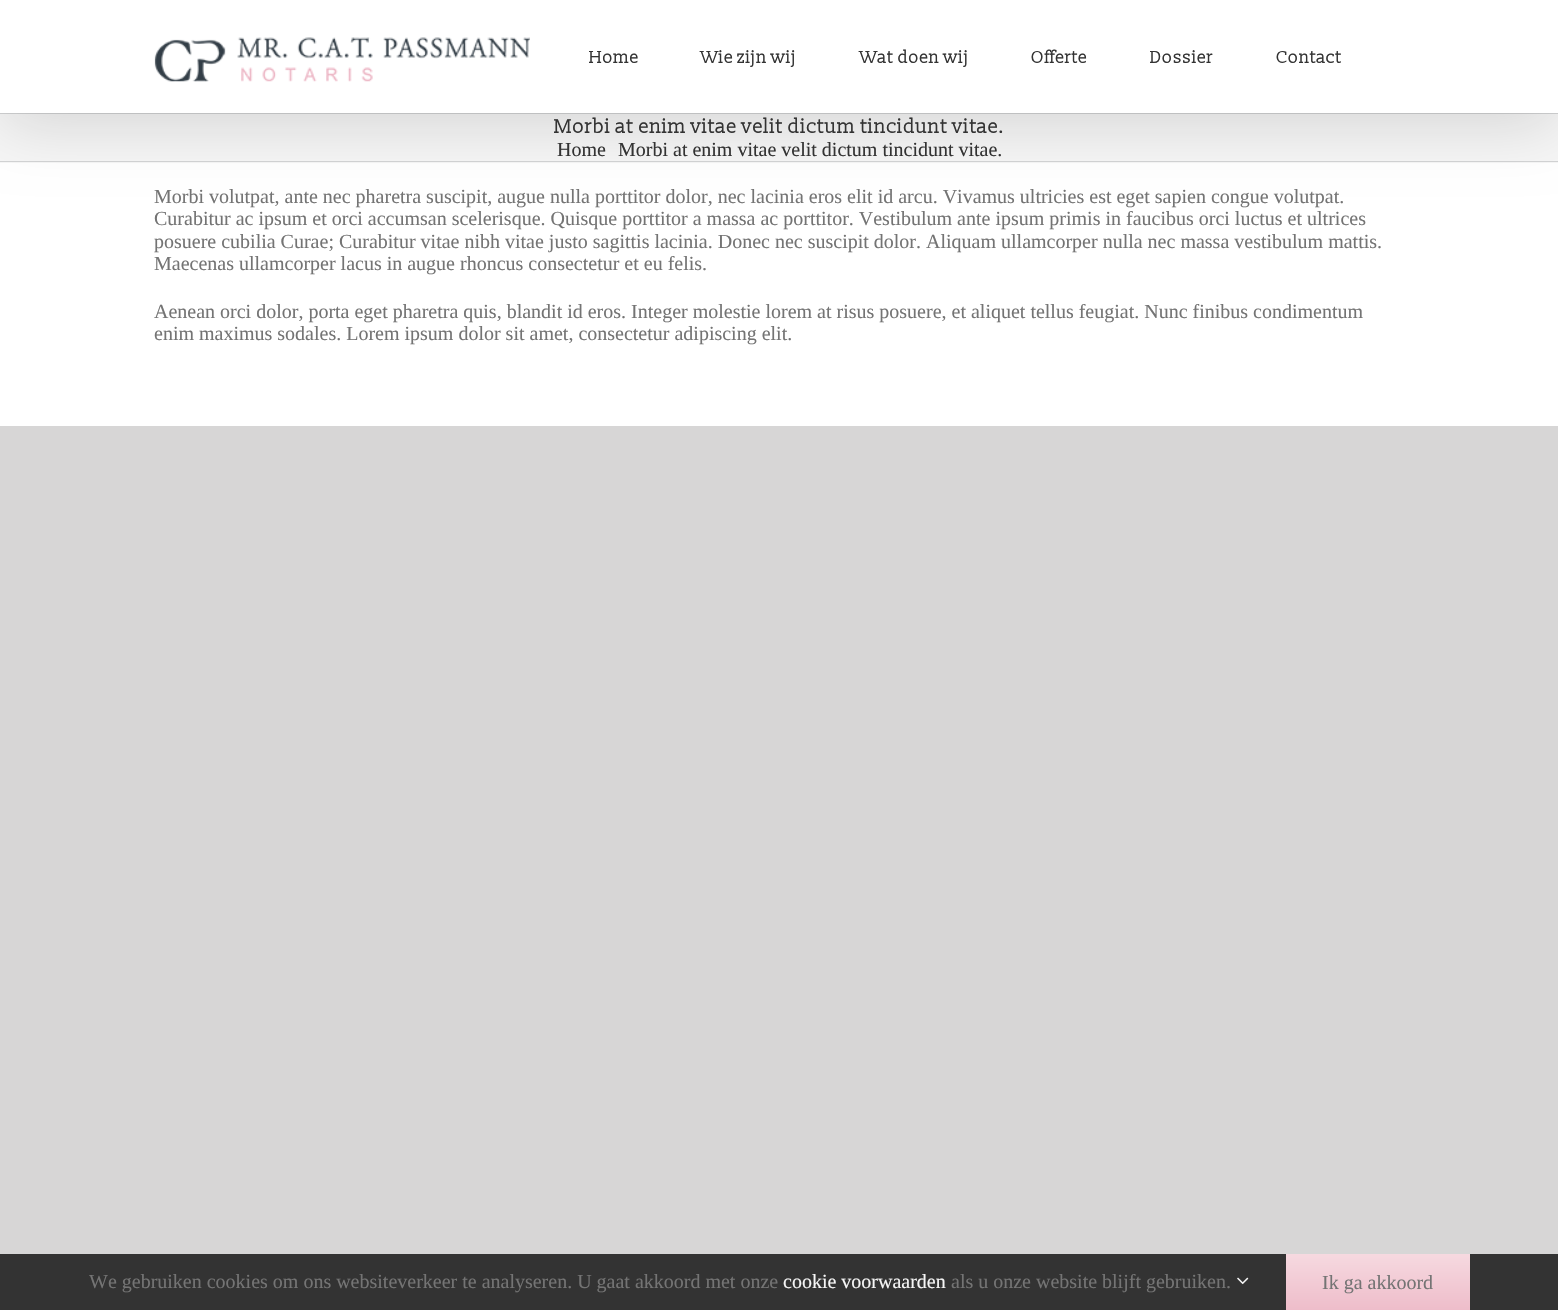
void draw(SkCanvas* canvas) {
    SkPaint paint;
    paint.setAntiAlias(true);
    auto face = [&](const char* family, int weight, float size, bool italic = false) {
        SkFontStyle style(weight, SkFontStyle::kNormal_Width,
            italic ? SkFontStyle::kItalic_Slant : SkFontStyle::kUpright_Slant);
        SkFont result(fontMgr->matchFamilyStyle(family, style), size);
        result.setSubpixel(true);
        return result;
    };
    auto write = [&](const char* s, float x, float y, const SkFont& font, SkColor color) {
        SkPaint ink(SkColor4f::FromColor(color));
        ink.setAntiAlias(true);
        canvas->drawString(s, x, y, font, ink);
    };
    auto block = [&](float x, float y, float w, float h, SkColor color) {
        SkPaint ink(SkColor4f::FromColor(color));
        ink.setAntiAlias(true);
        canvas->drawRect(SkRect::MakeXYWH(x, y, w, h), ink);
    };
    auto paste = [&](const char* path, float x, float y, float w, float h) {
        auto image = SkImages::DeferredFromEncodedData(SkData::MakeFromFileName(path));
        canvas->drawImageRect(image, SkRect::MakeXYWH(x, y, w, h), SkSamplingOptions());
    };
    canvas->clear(SkColorSetRGB(215, 214, 214));
    block(0, 163, 1558, 263, SK_ColorWHITE);
    block(0, 114, 1558, 49, SkColorSetRGB(246, 246, 246));
    block(0, 113, 1558, 1, SkColorSetRGB(210, 211, 212));
    block(0, 161, 1558, 1, SkColorSetRGB(210, 211, 212));
    paint.setColor(SkColorSetARGB(36, 0, 0, 0));
    paint.setMaskFilter(SkMaskFilter::MakeBlur(kNormal_SkBlurStyle, 31));
    canvas->drawRect(SkRect::MakeXYWH(3, 15, 1553, 108), paint);
    paint.setMaskFilter(nullptr);
    block(0, 0, 1558, 113, SK_ColorWHITE);
    paste("pic1.png", 154, 37, 376, 45);
    auto kFont1 = face("Slabo 13px", 400, 17.5f);
    write("Home", 589, 63, kFont1, SkColorSetRGB(51, 51, 51));
    write("Wie zijn wij", 701, 63, kFont1, SkColorSetRGB(51, 51, 51));
    write("Wat doen wij", 860, 63, kFont1, SkColorSetRGB(51, 51, 51));
    write("Offerte", 1031, 63, kFont1, SkColorSetRGB(51, 51, 51));
    write("Dossier", 1150, 63, kFont1, SkColorSetRGB(51, 51, 51));
    write("Contact", 1276, 63, kFont1, SkColorSetRGB(51, 51, 51));
    auto kFont2 = face("Slabo 13px", 400, 20);
    write("Morbi at enim vitae velit dictum tincidunt vitae.", 554, 133, kFont2, SkColorSetRGB(51, 51, 51));
    auto kFont3 = face("Liberation Serif", 400, 20);
    write("Home", 557, 156, kFont3, SkColorSetRGB(51, 51, 51));
    write("Morbi at enim vitae velit dictum tincidunt vitae.", 618, 156, kFont3, SkColorSetRGB(51, 51, 51));
    write("Morbi volutpat, ante nec pharetra suscipit, augue nulla porttitor dolor, nec lacinia eros elit id arcu. Vivamus ultricies est eget sapien congue volutpat.", 154, 203, kFont3, SkColorSetRGB(116, 116, 116));
    write("Curabitur ac ipsum et orci accumsan scelerisque. Quisque porttitor a massa ac porttitor. Vestibulum ante ipsum primis in faucibus orci luctus et ultrices", 154, 225, kFont3, SkColorSetRGB(116, 116, 116));
    write("posuere cubilia Curae; Curabitur vitae nibh vitae justo sagittis lacinia. Donec nec suscipit dolor. Aliquam ullamcorper nulla nec massa vestibulum mattis.", 154, 248, kFont3, SkColorSetRGB(116, 116, 116));
    write("Maecenas ullamcorper lacus in augue rhoncus consectetur et eu felis.", 154, 270, kFont3, SkColorSetRGB(116, 116, 116));
    write("Aenean orci dolor, porta eget pharetra quis, blandit id eros. Integer molestie lorem at risus posuere, et aliquet tellus feugiat. Nunc finibus condimentum", 154, 318, kFont3, SkColorSetRGB(116, 116, 116));
    write("enim maximus sodales. Lorem ipsum dolor sit amet, consectetur adipiscing elit.", 154, 340, kFont3, SkColorSetRGB(116, 116, 116));
    block(0, 1254, 1558, 56, SkColorSetRGB(51, 51, 51));
    write("We gebruiken cookies om ons websiteverkeer te analyseren. U gaat akkoord met onze", 89, 1288, kFont3, SkColorSetRGB(116, 116, 116));
    write("cookie voorwaarden", 783, 1288, kFont3, SkColorSetRGB(246, 246, 246));
    write("als u onze website blijft gebruiken.", 951, 1288, kFont3, SkColorSetRGB(116, 116, 116));
    paste("pic2.png", 1237, 1277, 12, 8);
    {
        const SkColor colors[] = {SkColorSetRGB(246, 217, 224), SkColorSetRGB(238, 189, 202)};
        const float stops[] = {0, 1};
        const SkPoint ends[] = {{1378, 1254}, {1378, 1310}};
        paint.setShader(SkGradientShader::MakeLinear(ends, colors, stops, 2, SkTileMode::kClamp));
        paint.setAlpha(255);
    }
    canvas->drawRect(SkRect::MakeXYWH(1286, 1254, 184, 56), paint);
    write("Ik ga akkoord", 1322, 1289, kFont3, SkColorSetRGB(116, 116, 116));
}
